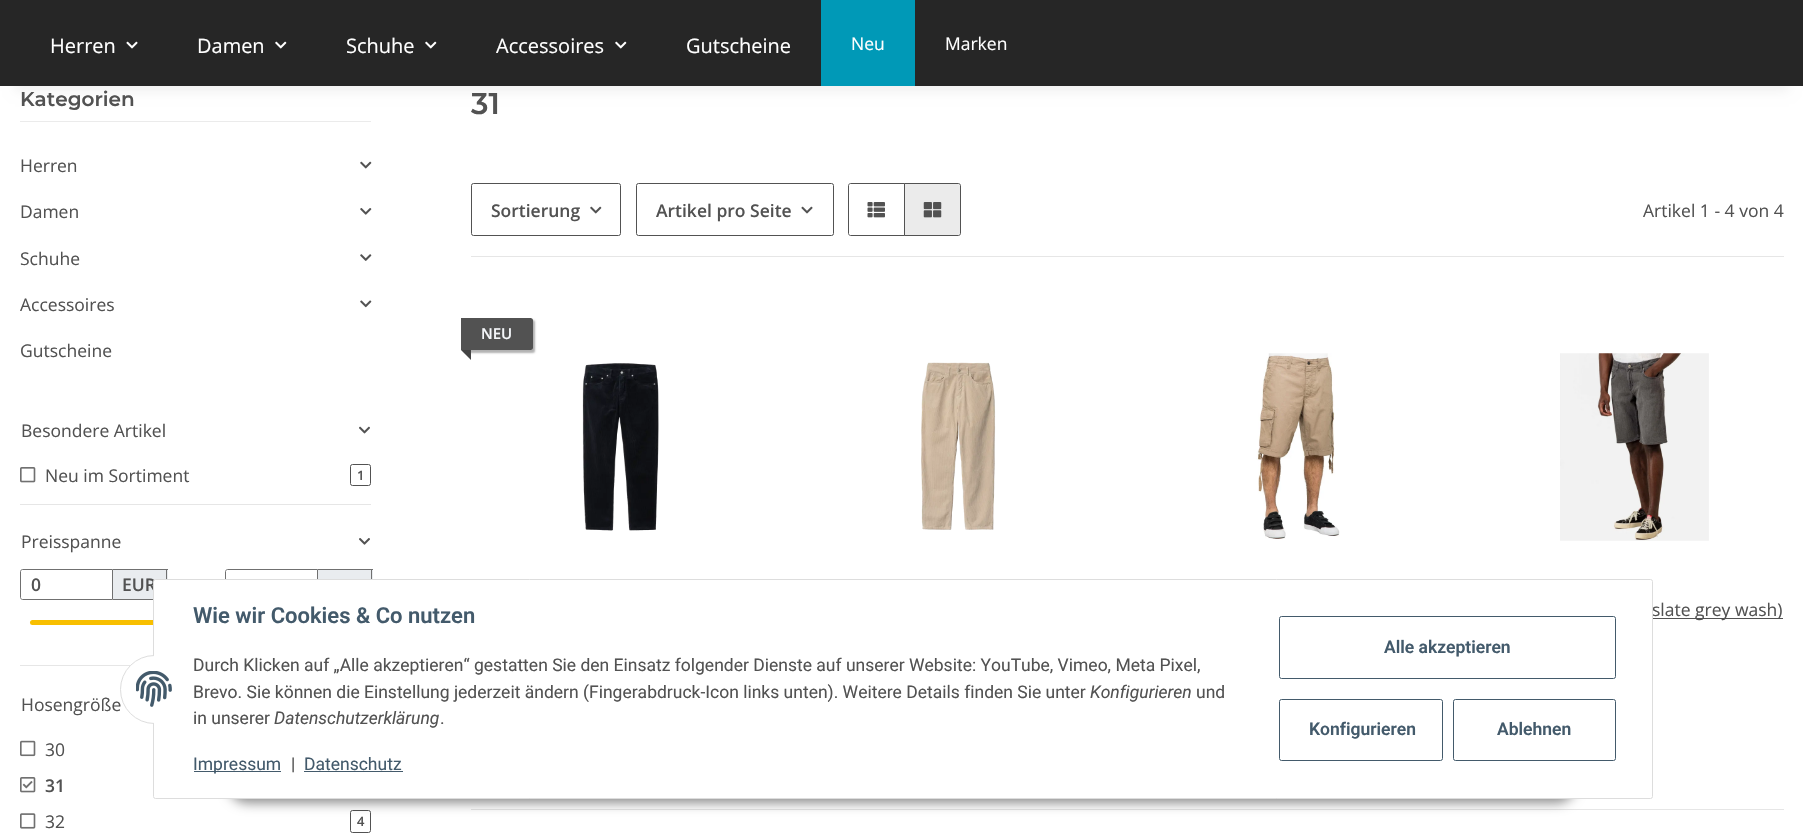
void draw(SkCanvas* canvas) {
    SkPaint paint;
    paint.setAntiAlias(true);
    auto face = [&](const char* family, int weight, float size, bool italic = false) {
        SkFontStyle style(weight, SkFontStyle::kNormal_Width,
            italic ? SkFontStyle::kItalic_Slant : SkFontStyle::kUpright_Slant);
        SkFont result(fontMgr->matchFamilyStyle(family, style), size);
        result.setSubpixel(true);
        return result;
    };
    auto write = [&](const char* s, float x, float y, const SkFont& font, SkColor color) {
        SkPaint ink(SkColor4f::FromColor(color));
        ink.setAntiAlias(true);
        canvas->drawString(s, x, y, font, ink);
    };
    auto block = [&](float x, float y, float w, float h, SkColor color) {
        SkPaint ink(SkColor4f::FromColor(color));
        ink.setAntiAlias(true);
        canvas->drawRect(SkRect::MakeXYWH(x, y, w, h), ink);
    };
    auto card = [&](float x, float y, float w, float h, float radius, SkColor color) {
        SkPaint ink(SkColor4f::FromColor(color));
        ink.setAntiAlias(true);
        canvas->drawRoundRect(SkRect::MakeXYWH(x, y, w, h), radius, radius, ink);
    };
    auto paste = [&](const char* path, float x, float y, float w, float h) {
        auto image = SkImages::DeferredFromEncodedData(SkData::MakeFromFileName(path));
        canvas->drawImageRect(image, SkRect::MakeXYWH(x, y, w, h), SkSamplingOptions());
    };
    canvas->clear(SK_ColorWHITE);
    paint.setColor(SkColorSetARGB(15, 0, 0, 0));
    paint.setMaskFilter(SkMaskFilter::MakeBlur(kNormal_SkBlurStyle, 5.5f));
    canvas->drawRect(SkRect::MakeXYWH(15, 35, 1774, 56), paint);
    paint.setMaskFilter(nullptr);
    block(0, 0, 1803, 86, SkColorSetRGB(38, 38, 38));
    auto kFont1 = face("Open Sans", 400, 20);
    write("Herren", 50, 53, kFont1, SK_ColorWHITE);
    paste("pic1.png", 126, 41, 12, 8);
    write("Damen", 197, 53, kFont1, SK_ColorWHITE);
    paste("pic2.png", 275, 41, 12, 8);
    write("Schuhe", 346, 53, kFont1, SK_ColorWHITE);
    paste("pic2.png", 425, 41, 12, 8);
    write("Accessoires", 496, 53, kFont1, SK_ColorWHITE);
    paste("pic2.png", 615, 41, 12, 8);
    write("Gutscheine", 686, 53, kFont1, SK_ColorWHITE);
    block(821, 0, 94, 86, SkColorSetRGB(0, 153, 183));
    auto kFont2 = face("Open Sans", 400, 17.5f);
    write("Neu", 851, 50, kFont2, SK_ColorWHITE);
    write("Marken", 945, 50, kFont2, SK_ColorWHITE);
    block(20, 121, 351, 1, SkColorSetRGB(235, 235, 235));
    auto kFont3 = face("Montserrat", 600, 20);
    write("Kategorien", 20, 106, kFont3, SkColorSetRGB(82, 82, 82));
    write("Herren", 20, 172, kFont2, SkColorSetRGB(82, 82, 82));
    paste("pic3.png", 360, 161, 12, 8);
    write("Damen", 20, 218, kFont2, SkColorSetRGB(82, 82, 82));
    paste("pic4.png", 360, 208, 12, 7);
    write("Schuhe", 20, 265, kFont2, SkColorSetRGB(82, 82, 82));
    paste("pic5.png", 360, 254, 12, 7);
    write("Accessoires", 20, 311, kFont2, SkColorSetRGB(82, 82, 82));
    paste("pic6.png", 360, 300, 12, 8);
    write("Gutscheine", 20, 357, kFont2, SkColorSetRGB(82, 82, 82));
    write("Besondere Artikel", 21, 437, kFont2, SkColorSetRGB(82, 82, 82));
    paste("pic7.png", 359, 426, 11, 8);
    paste("pic8.png", 20, 467, 16, 16);
    write("Neu im Sortiment", 45, 482, kFont2, SkColorSetRGB(82, 82, 82));
    paint.setStyle(SkPaint::kStroke_Style);
    paint.setStrokeWidth(1);
    paint.setColor(SkColorSetRGB(82, 82, 82));
    canvas->drawRoundRect(SkRect::MakeXYWH(350.5f, 464.5f, 20, 21), 2, 2, paint);
    auto kFont4 = face("Open Sans", 600, 13);
    write("1", 357, 480, kFont4, SkColorSetRGB(82, 82, 82));
    block(20, 504, 351, 1, SkColorSetRGB(230, 230, 230));
    write("Preisspanne", 21, 548, kFont2, SkColorSetRGB(82, 82, 82));
    paste("pic9.png", 359, 538, 11, 7);
    paint.setColor(SkColorSetRGB(112, 112, 112));
    canvas->drawPath(SkPathBuilder().moveTo(22.5f, 569.5f).lineTo(112.5f, 569.5f).lineTo(112.5f, 599.5f).lineTo(22.5f, 599.5f).cubicTo(21.5f, 599.5f, 20.5f, 598.5f, 20.5f, 597.5f).lineTo(20.5f, 571.5f).cubicTo(20.5f, 570.5f, 21.5f, 569.5f, 22.5f, 569.5f).close().detach(), paint);
    auto kFont5 = face("Open Sans", 600, 17.5f);
    write("0", 31, 591, kFont5, SkColorSetRGB(82, 82, 82));
    block(113, 570, 55, 29, SkColorSetRGB(233, 236, 239));
    block(113, 569, 55, 1, SkColorSetRGB(112, 112, 112));
    block(166, 569, 1, 10, SkColorSetRGB(112, 112, 112));
    block(113, 599, 40, 1, SkColorSetRGB(112, 112, 112));
    write("EUR", 122, 591, kFont5, SkColorSetRGB(82, 82, 82));
    canvas->drawPath(SkPathBuilder().moveTo(227.5f, 569.5f).lineTo(317.5f, 569.5f).lineTo(317.5f, 599.5f).lineTo(227.5f, 599.5f).cubicTo(226.5f, 599.5f, 225.5f, 598.5f, 225.5f, 597.5f).lineTo(225.5f, 571.5f).cubicTo(225.5f, 570.5f, 226.5f, 569.5f, 227.5f, 569.5f).close().detach(), paint);
    block(318, 570, 55, 9, SkColorSetRGB(233, 236, 239));
    block(318, 569, 55, 1, SkColorSetRGB(112, 112, 112));
    block(371, 569, 1, 10, SkColorSetRGB(112, 112, 112));
    card(30, 620, 331, 5, 2.5f, SkColorSetRGB(248, 191, 0));
    block(20, 665, 111, 1, SkColorSetRGB(230, 230, 230));
    write("Hosengröße", 21, 711, kFont2, SkColorSetRGB(82, 82, 82));
    paste("pic10.png", 20, 740, 16, 17);
    write("30", 45, 756, kFont2, SkColorSetRGB(82, 82, 82));
    paste("pic11.png", 20, 777, 16, 16);
    write("31", 45, 792, kFont5, SkColorSetRGB(82, 82, 82));
    paste("pic12.png", 20, 813, 16, 16);
    write("32", 45, 828, kFont2, SkColorSetRGB(82, 82, 82));
    paint.setColor(SkColorSetRGB(82, 82, 82));
    canvas->drawRoundRect(SkRect::MakeXYWH(350.5f, 810.5f, 20, 22), 2, 2, paint);
    write("4", 357, 826, kFont4, SkColorSetRGB(82, 82, 82));
    auto kFont6 = face("Montserrat", 600, 30);
    write("31", 471, 114, kFont6, SkColorSetRGB(82, 82, 82));
    canvas->drawRoundRect(SkRect::MakeXYWH(471.5f, 183.5f, 149, 52), 2, 2, paint);
    write("Sortierung", 491, 217, kFont5, SkColorSetRGB(82, 82, 82));
    paste("pic3.png", 590, 206, 12, 8);
    canvas->drawRoundRect(SkRect::MakeXYWH(636.5f, 183.5f, 197, 52), 2, 2, paint);
    write("Artikel pro Seite", 656, 217, kFont5, SkColorSetRGB(82, 82, 82));
    paste("pic13.png", 801, 206, 12, 8);
    canvas->drawPath(SkPathBuilder().moveTo(850.5f, 183.5f).lineTo(904.5f, 183.5f).lineTo(904.5f, 235.5f).lineTo(850.5f, 235.5f).cubicTo(849.5f, 235.5f, 848.5f, 234.5f, 848.5f, 233.5f).lineTo(848.5f, 185.5f).cubicTo(848.5f, 184.5f, 849.5f, 183.5f, 850.5f, 183.5f).close().detach(), paint);
    paste("pic14.png", 867, 202, 18, 16);
    paint.setStyle(SkPaint::kFill_Style);
    paint.setColor(SkColorSetRGB(235, 235, 235));
    canvas->drawPath(SkPathBuilder().moveTo(904.5f, 183.5f).lineTo(958.5f, 183.5f).cubicTo(959.5f, 183.5f, 960.5f, 184.5f, 960.5f, 185.5f).lineTo(960.5f, 233.5f).cubicTo(960.5f, 234.5f, 959.5f, 235.5f, 958.5f, 235.5f).lineTo(904.5f, 235.5f).close().detach(), paint);
    paint.setStyle(SkPaint::kStroke_Style);
    paint.setColor(SkColorSetRGB(82, 82, 82));
    canvas->drawPath(SkPathBuilder().moveTo(904.5f, 183.5f).lineTo(958.5f, 183.5f).cubicTo(959.5f, 183.5f, 960.5f, 184.5f, 960.5f, 185.5f).lineTo(960.5f, 233.5f).cubicTo(960.5f, 234.5f, 959.5f, 235.5f, 958.5f, 235.5f).lineTo(904.5f, 235.5f).close().detach(), paint);
    paste("pic15.png", 923, 202, 19, 16);
    write("Artikel 1 - 4 von 4", 1643, 217, kFont2, SkColorSetRGB(82, 82, 82));
    block(471, 256, 1313, 1, SkColorSetRGB(230, 230, 230));
    paint.setStyle(SkPaint::kFill_Style);
    paint.setColor(SkColorSetARGB(77, 0, 0, 0));
    paint.setMaskFilter(SkMaskFilter::MakeBlur(kNormal_SkBlurStyle, 1));
    canvas->drawRoundRect(SkRect::MakeXYWH(464, 320, 71, 33), 2.5f, 2.5f, paint);
    paint.setMaskFilter(nullptr);
    paint.setColor(SkColorSetRGB(82, 82, 82));
    canvas->drawPath(SkPathBuilder().moveTo(461, 318).lineTo(530.5f, 318).cubicTo(532, 318, 533, 319, 533, 320.5f).lineTo(533, 347.5f).cubicTo(533, 349, 532, 350, 530.5f, 350).lineTo(461, 350).close().detach(), paint);
    auto kFont7 = face("Open Sans", 600, 15);
    write("NEU", 481, 339, kFont7, SkColorSetRGB(245, 247, 250));
    paint.setColor(SkColorSetRGB(67, 67, 67));
    canvas->drawPath(SkPathBuilder().moveTo(471, 350).lineTo(471, 360).lineTo(461, 350).close().detach(), paint);
    paste("pic16.png", 582, 363, 77, 168);
    paste("pic17.png", 921, 362, 75, 168);
    paste("pic18.png", 1256, 353, 84, 186);
    paste("pic19.png", 1560, 353, 149, 188);
    block(1653, 618, 130, 1, SkColorSetRGB(82, 82, 82));
    write("slate grey wash)", 1652, 616, kFont2, SkColorSetRGB(82, 82, 82));
    block(471, 809, 1313, 1, SkColorSetRGB(230, 230, 230));
    paint.setColor(SkColorSetARGB(115, 0, 0, 0));
    paint.setMaskFilter(SkMaskFilter::MakeBlur(kNormal_SkBlurStyle, 6));
    canvas->drawRoundRect(SkRect::MakeXYWH(228, 763, 1348, 40), 20, 20, paint);
    paint.setMaskFilter(nullptr);
    paint.setColor(SK_ColorWHITE);
    canvas->drawRoundRect(SkRect::MakeXYWH(153.5f, 579.5f, 1499, 219), 2, 2, paint);
    paint.setStyle(SkPaint::kStroke_Style);
    paint.setColor(SkColorSetRGB(221, 221, 221));
    canvas->drawRoundRect(SkRect::MakeXYWH(153.5f, 579.5f, 1499, 219), 2, 2, paint);
    paint.setStyle(SkPaint::kFill_Style);
    paint.setColor(SK_ColorWHITE);
    canvas->drawCircle(154.5f, 689.5f, 34, paint);
    paint.setStyle(SkPaint::kStroke_Style);
    paint.setColor(SkColorSetRGB(221, 221, 221));
    canvas->drawCircle(154.5f, 689.5f, 34, paint);
    block(154, 655, 35, 69, SK_ColorWHITE);
    paste("pic20.png", 136, 671, 36, 36);
    auto kFont8 = face("Roboto", 600, 22);
    write("Wie wir Cookies & Co nutzen", 193, 623, kFont8, SkColorSetRGB(67, 90, 107));
    auto kFont9 = face("Roboto", 400, 17.5f);
    write("Durch Klicken auf „Alle akzeptieren“ gestatten Sie den Einsatz folgender Dienste auf unserer Website: YouTube, Vimeo, Meta Pixel,", 193, 671, kFont9, SkColorSetRGB(82, 82, 82));
    write("Brevo. Sie können die Einstellung jederzeit ändern (Fingerabdruck-Icon links unten). Weitere Details finden Sie unter", 193, 698, kFont9, SkColorSetRGB(82, 82, 82));
    auto kFont10 = face("Roboto", 400, 17.5f, true);
    write("Konfigurieren", 1090, 698, kFont10, SkColorSetRGB(82, 82, 82));
    write("und", 1196, 698, kFont9, SkColorSetRGB(82, 82, 82));
    write("in unserer", 193, 724, kFont9, SkColorSetRGB(82, 82, 82));
    write("Datenschutzerklärung", 274, 724, kFont10, SkColorSetRGB(82, 82, 82));
    write(".", 440, 724, kFont9, SkColorSetRGB(82, 82, 82));
    block(194, 771, 87, 1, SkColorSetRGB(67, 90, 107));
    write("Impressum", 193, 770, kFont9, SkColorSetRGB(67, 90, 107));
    write("|", 291, 770, kFont9, SkColorSetRGB(82, 82, 82));
    write("Datenschutz", 304, 770, kFont9, SkColorSetRGB(67, 90, 107));
    block(304, 771, 99, 1, SkColorSetRGB(67, 90, 107));
    paint.setColor(SkColorSetRGB(67, 90, 107));
    canvas->drawRoundRect(SkRect::MakeXYWH(1279.5f, 616.5f, 336, 62), 2, 2, paint);
    auto kFont11 = face("Roboto", 600, 17.5f);
    write("Alle akzeptieren", 1384, 653, kFont11, SkColorSetRGB(67, 90, 107));
    canvas->drawRoundRect(SkRect::MakeXYWH(1279.5f, 699.5f, 163, 61), 2, 2, paint);
    write("Konfigurieren", 1309, 735, kFont11, SkColorSetRGB(67, 90, 107));
    canvas->drawRoundRect(SkRect::MakeXYWH(1453.5f, 699.5f, 162, 61), 2, 2, paint);
    write("Ablehnen", 1497, 735, kFont11, SkColorSetRGB(67, 90, 107));
}
